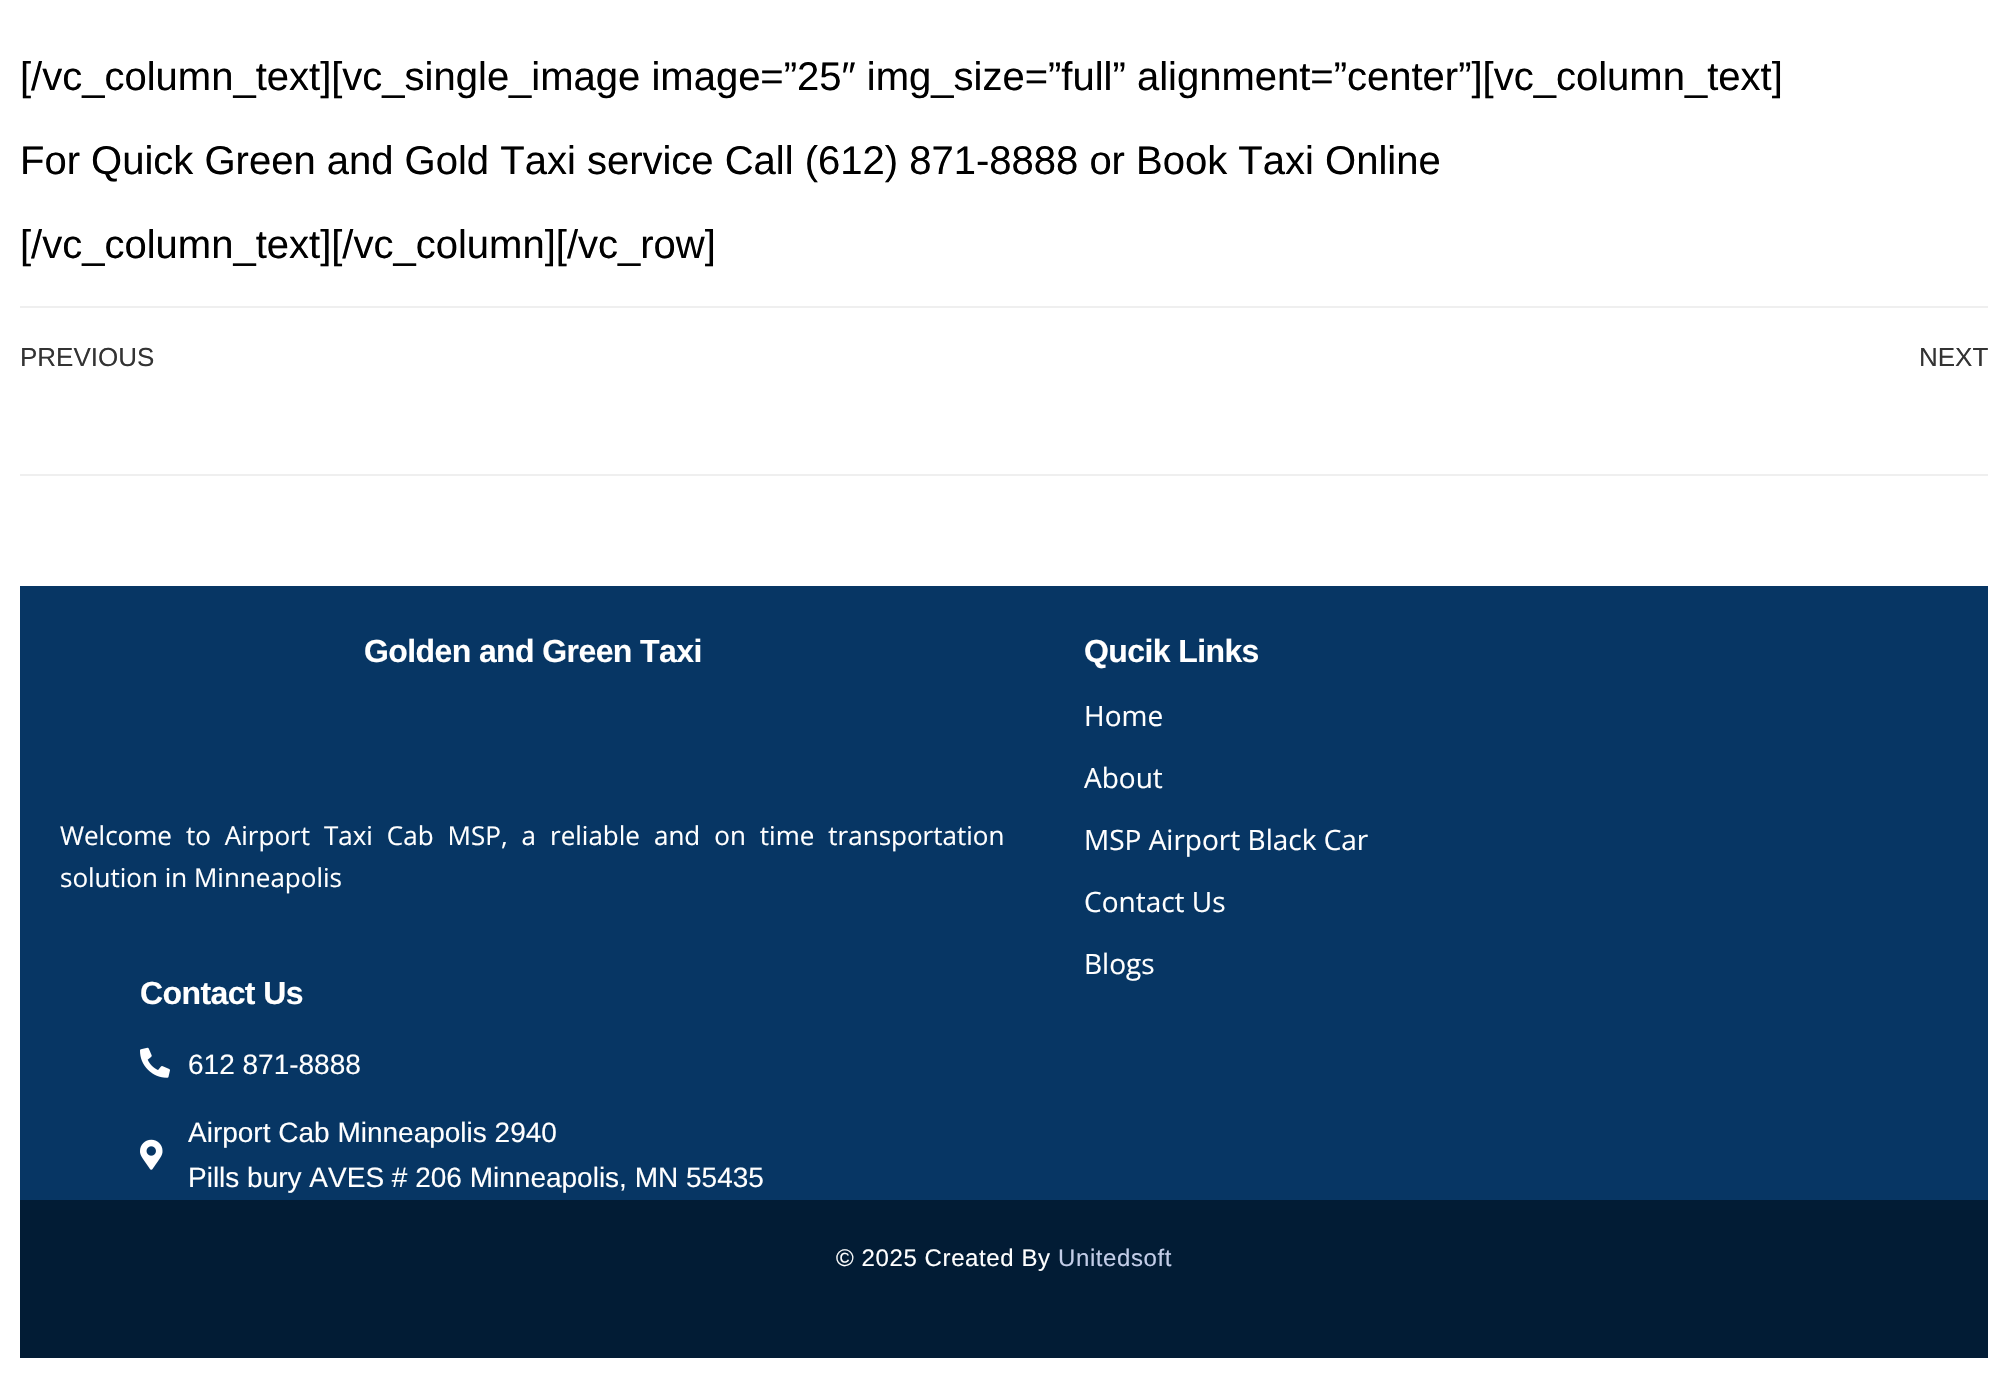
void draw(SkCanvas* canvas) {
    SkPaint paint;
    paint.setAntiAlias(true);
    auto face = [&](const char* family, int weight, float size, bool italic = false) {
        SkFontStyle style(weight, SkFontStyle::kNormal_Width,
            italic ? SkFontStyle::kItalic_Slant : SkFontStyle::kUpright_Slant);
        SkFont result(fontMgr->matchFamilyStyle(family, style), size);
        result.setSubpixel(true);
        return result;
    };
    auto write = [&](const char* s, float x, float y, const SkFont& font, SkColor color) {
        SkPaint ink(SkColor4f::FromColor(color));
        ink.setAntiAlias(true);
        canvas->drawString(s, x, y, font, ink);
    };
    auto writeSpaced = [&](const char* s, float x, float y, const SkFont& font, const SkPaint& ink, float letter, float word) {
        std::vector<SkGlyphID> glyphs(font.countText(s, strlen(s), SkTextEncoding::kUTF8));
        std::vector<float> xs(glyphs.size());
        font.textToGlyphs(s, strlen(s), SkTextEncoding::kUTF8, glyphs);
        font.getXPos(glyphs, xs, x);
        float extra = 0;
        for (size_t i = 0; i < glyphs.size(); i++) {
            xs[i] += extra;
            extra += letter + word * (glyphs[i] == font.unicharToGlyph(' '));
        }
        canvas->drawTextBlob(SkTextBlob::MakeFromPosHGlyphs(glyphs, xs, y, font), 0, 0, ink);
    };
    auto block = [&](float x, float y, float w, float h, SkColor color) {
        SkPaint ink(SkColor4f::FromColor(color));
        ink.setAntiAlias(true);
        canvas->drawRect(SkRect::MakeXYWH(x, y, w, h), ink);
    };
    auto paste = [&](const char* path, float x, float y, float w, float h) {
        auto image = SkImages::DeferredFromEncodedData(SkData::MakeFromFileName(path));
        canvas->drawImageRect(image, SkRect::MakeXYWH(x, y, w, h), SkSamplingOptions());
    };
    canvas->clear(SK_ColorWHITE);
    auto kFont1 = face("Liberation Sans", 400, 40);
    write("[/vc_column_text][vc_single_image image=”25″ img_size=”full” alignment=”center”][vc_column_text]", 20, 90, kFont1, SK_ColorBLACK);
    write("For Quick Green and Gold Taxi service Call (612) 871-8888 or Book Taxi Online", 20, 174, kFont1, SK_ColorBLACK);
    write("[/vc_column_text][/vc_column][/vc_row]", 20, 258, kFont1, SK_ColorBLACK);
    block(20, 306, 1968, 2, SkColorSetRGB(239, 239, 239));
    block(20, 474, 1968, 2, SkColorSetRGB(239, 239, 239));
    auto kFont2 = face("Liberation Sans", 400, 26);
    write("PREVIOUS", 20, 366, kFont2, SkColorSetRGB(51, 51, 51));
    write("NEXT", 1919, 366, kFont2, SkColorSetRGB(51, 51, 51));
    block(20, 586, 1968, 614, SkColorSetRGB(7, 54, 100));
    auto kFont3 = face("Liberation Sans", 700, 32);
    paint.setColor(SK_ColorWHITE);
    writeSpaced("Golden and Green Taxi", 364, 662, kFont3, paint, -0.6f, 0);
    auto kFont4 = face("Open Sans", 400, 26);
    writeSpaced("Welcome to Airport Taxi Cab MSP, a reliable and on time transportation", 60, 845, kFont4, paint, 0, 7.25f);
    write("solution in Minneapolis", 60, 887, kFont4, SK_ColorWHITE);
    writeSpaced("Qucik Links", 1084, 662, kFont3, paint, -0.6f, 0);
    auto kFont5 = face("Open Sans", 400, 28);
    write("Home", 1084, 726, kFont5, SK_ColorWHITE);
    write("About", 1084, 788, kFont5, SK_ColorWHITE);
    write("MSP Airport Black Car", 1084, 850, kFont5, SK_ColorWHITE);
    write("Contact Us", 1084, 912, kFont5, SK_ColorWHITE);
    write("Blogs", 1084, 974, kFont5, SK_ColorWHITE);
    writeSpaced("Contact Us", 140, 1004, kFont3, paint, -0.6f, 0);
    paste("pic1.png", 140, 1047, 30, 31);
    auto kFont6 = face("Liberation Sans", 400, 28);
    write("612 871-8888", 188, 1074, kFont6, SK_ColorWHITE);
    paste("pic2.png", 140, 1139, 23, 31);
    write("Airport Cab Minneapolis 2940", 188, 1142, kFont6, SK_ColorWHITE);
    write("Pills bury AVES # 206 Minneapolis, MN 55435", 188, 1187, kFont6, SK_ColorWHITE);
    block(20, 1200, 1968, 158, SkColorSetRGB(2, 28, 53));
    auto kFont7 = face("Liberation Sans", 400, 24);
    writeSpaced("© 2025 Created By", 836, 1266, kFont7, paint, 0.6f, 0);
    paint.setColor(SkColorSetRGB(195, 205, 232));
    writeSpaced("Unitedsoft", 1058, 1266, kFont7, paint, 0.6f, 0);
}
